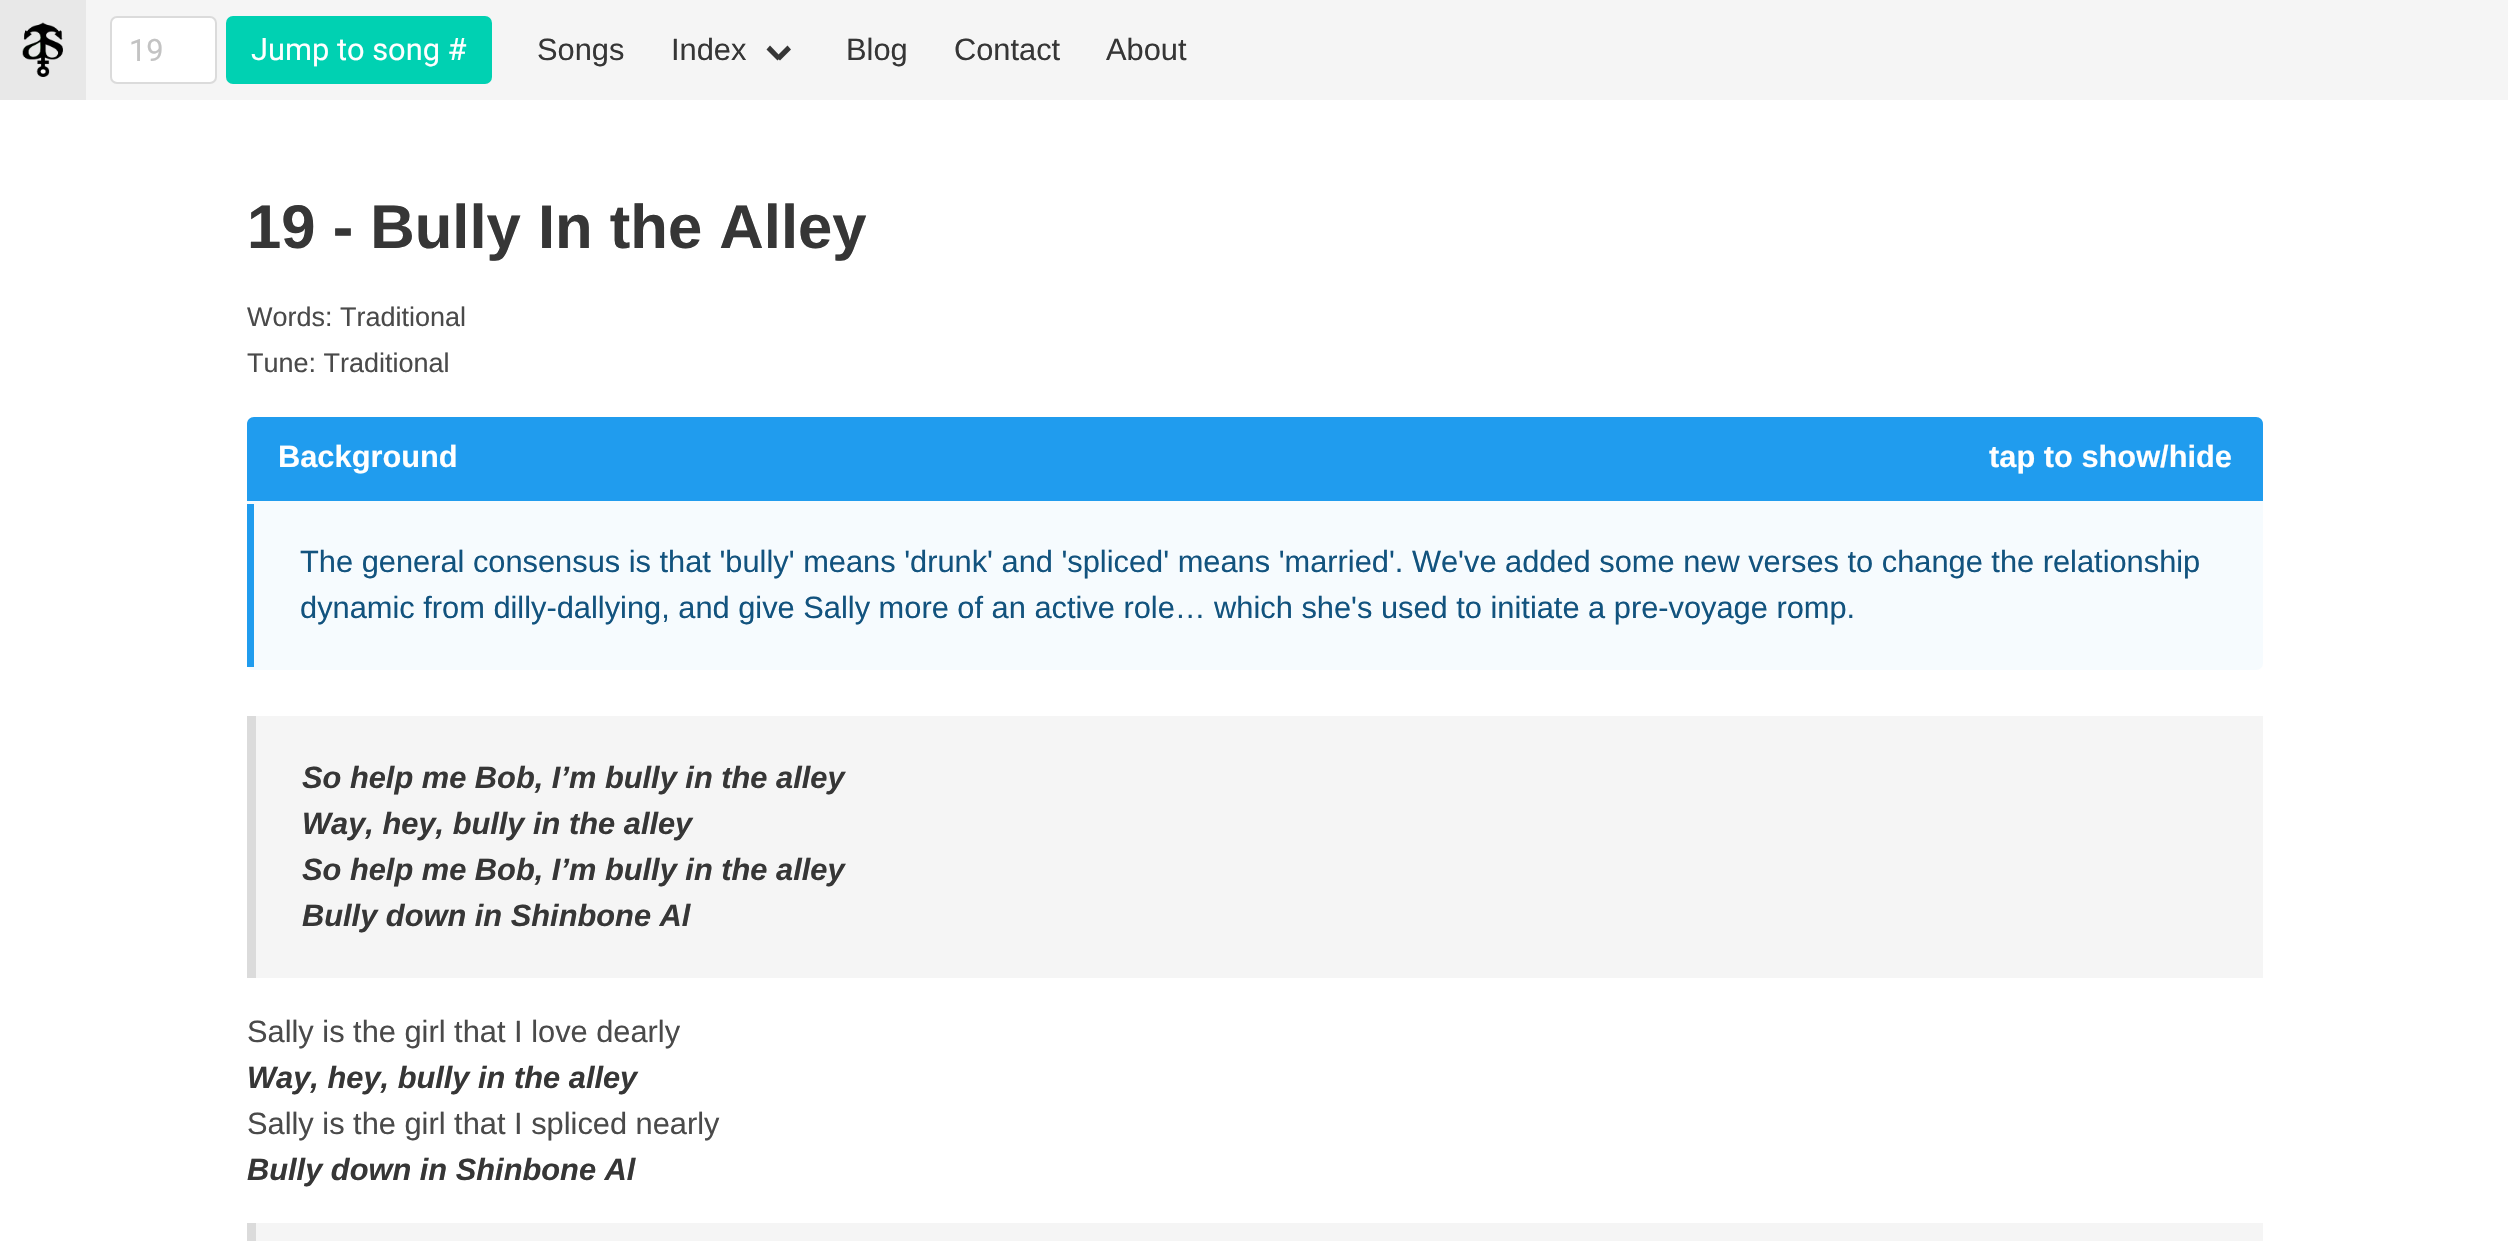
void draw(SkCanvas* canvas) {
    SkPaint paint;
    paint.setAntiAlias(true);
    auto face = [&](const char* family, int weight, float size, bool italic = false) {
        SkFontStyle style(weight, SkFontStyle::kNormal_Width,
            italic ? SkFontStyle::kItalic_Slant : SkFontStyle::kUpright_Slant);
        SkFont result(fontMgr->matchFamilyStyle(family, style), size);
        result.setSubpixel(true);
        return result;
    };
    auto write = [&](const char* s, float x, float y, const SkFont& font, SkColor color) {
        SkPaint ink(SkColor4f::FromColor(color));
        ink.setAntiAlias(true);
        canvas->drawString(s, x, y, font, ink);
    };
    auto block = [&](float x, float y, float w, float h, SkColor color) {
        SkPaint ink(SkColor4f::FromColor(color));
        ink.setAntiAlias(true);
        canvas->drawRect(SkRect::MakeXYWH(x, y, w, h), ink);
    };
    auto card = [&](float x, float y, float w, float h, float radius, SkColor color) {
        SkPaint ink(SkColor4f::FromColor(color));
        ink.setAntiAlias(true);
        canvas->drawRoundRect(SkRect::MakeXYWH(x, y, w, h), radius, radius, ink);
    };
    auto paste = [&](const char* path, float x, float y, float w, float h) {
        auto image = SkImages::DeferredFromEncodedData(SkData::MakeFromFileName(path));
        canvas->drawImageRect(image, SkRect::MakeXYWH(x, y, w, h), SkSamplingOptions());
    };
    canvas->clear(SK_ColorWHITE);
    block(86, 0, 2422, 100, SkColorSetRGB(245, 245, 245));
    block(0, 0, 86, 100, SkColorSetRGB(232, 232, 232));
    paste("pic1.png", 22, 22, 41, 55);
    paint.setColor(SK_ColorWHITE);
    canvas->drawRoundRect(SkRect::MakeXYWH(111, 17, 105, 66), 6, 6, paint);
    paint.setStyle(SkPaint::kStroke_Style);
    paint.setStrokeWidth(2);
    paint.setColor(SkColorSetRGB(219, 219, 219));
    canvas->drawRoundRect(SkRect::MakeXYWH(111, 17, 105, 66), 6, 6, paint);
    auto kFont1 = face("Roboto", 400, 30.8f);
    write("19", 129, 61, kFont1, SkColorSetRGB(195, 195, 195));
    card(226, 16, 266, 68, 7, SkColorSetRGB(0, 209, 178));
    write("Jump to song #", 251, 60, kFont1, SK_ColorWHITE);
    auto kFont2 = face("Liberation Sans", 400, 30.8f);
    write("Songs", 537, 60, kFont2, SkColorSetRGB(54, 54, 54));
    write("Index", 671, 60, kFont2, SkColorSetRGB(54, 54, 54));
    paint.setStyle(SkPaint::kFill_Style);
    paint.setColor(SkColorSetRGB(54, 54, 54));
    canvas->drawPath(SkPathBuilder().moveTo(776, 57).lineTo(787.5f, 45.5f).lineTo(791, 49.5f).lineTo(780, 60.5f).close().detach(), paint);
    canvas->drawPath(SkPathBuilder().moveTo(766.5f, 49.5f).lineTo(770, 45.5f).lineTo(781, 57).lineTo(777.5f, 60.5f).close().detach(), paint);
    write("Blog", 846, 60, kFont2, SkColorSetRGB(54, 54, 54));
    write("Contact", 954, 60, kFont2, SkColorSetRGB(54, 54, 54));
    write("About", 1106, 60, kFont2, SkColorSetRGB(54, 54, 54));
    auto kFont3 = face("Liberation Sans", 700, 61.6f);
    write("19 - Bully In the Alley", 247, 248, kFont3, SkColorSetRGB(54, 54, 54));
    auto kFont4 = face("Liberation Sans", 400, 27);
    write("Words: Traditional", 247, 326, kFont4, SkColorSetRGB(74, 74, 74));
    write("Tune: Traditional", 247, 372, kFont4, SkColorSetRGB(74, 74, 74));
    card(247, 417, 2016, 253, 7, SkColorSetRGB(246, 251, 254));
    paint.setColor(SkColorSetRGB(32, 156, 238));
    canvas->drawPath(SkPathBuilder().moveTo(254, 417).lineTo(2256, 417).cubicTo(2260, 417, 2263, 420, 2263, 424).lineTo(2263, 501).lineTo(247, 501).lineTo(247, 424).cubicTo(247, 420, 250, 417, 254, 417).close().detach(), paint);
    auto kFont5 = face("Liberation Sans", 700, 30.8f);
    write("Background", 278, 467, kFont5, SK_ColorWHITE);
    write("tap to show/hide", 1989, 467, kFont5, SK_ColorWHITE);
    block(247, 504, 7, 163, SkColorSetRGB(32, 156, 238));
    write("The general consensus is that 'bully' means 'drunk' and 'spliced' means 'married'. We've added some new verses to change the relationship", 300, 572, kFont2, SkColorSetRGB(18, 83, 126));
    write("dynamic from dilly-dallying, and give Sally more of an active role… which she's used to initiate a pre-voyage romp.", 300, 618, kFont2, SkColorSetRGB(18, 83, 126));
    block(256, 716, 2007, 262, SkColorSetRGB(245, 245, 245));
    block(247, 716, 9, 262, SkColorSetRGB(219, 219, 219));
    auto kFont6 = face("Liberation Sans", 700, 30.8f, true);
    write("So help me Bob, I’m bully in the alley", 302, 788, kFont6, SkColorSetRGB(54, 54, 54));
    write("Way, hey, bully in the alley", 302, 834, kFont6, SkColorSetRGB(54, 54, 54));
    write("So help me Bob, I’m bully in the alley", 302, 880, kFont6, SkColorSetRGB(54, 54, 54));
    write("Bully down in Shinbone Al", 302, 926, kFont6, SkColorSetRGB(54, 54, 54));
    write("Sally is the girl that I love dearly", 247, 1042, kFont2, SkColorSetRGB(74, 74, 74));
    write("Way, hey, bully in the alley", 247, 1088, kFont6, SkColorSetRGB(54, 54, 54));
    write("Sally is the girl that I spliced nearly", 247, 1134, kFont2, SkColorSetRGB(74, 74, 74));
    write("Bully down in Shinbone Al", 247, 1180, kFont6, SkColorSetRGB(54, 54, 54));
    block(256, 1223, 2007, 18, SkColorSetRGB(245, 245, 245));
    block(247, 1223, 9, 18, SkColorSetRGB(219, 219, 219));
}
